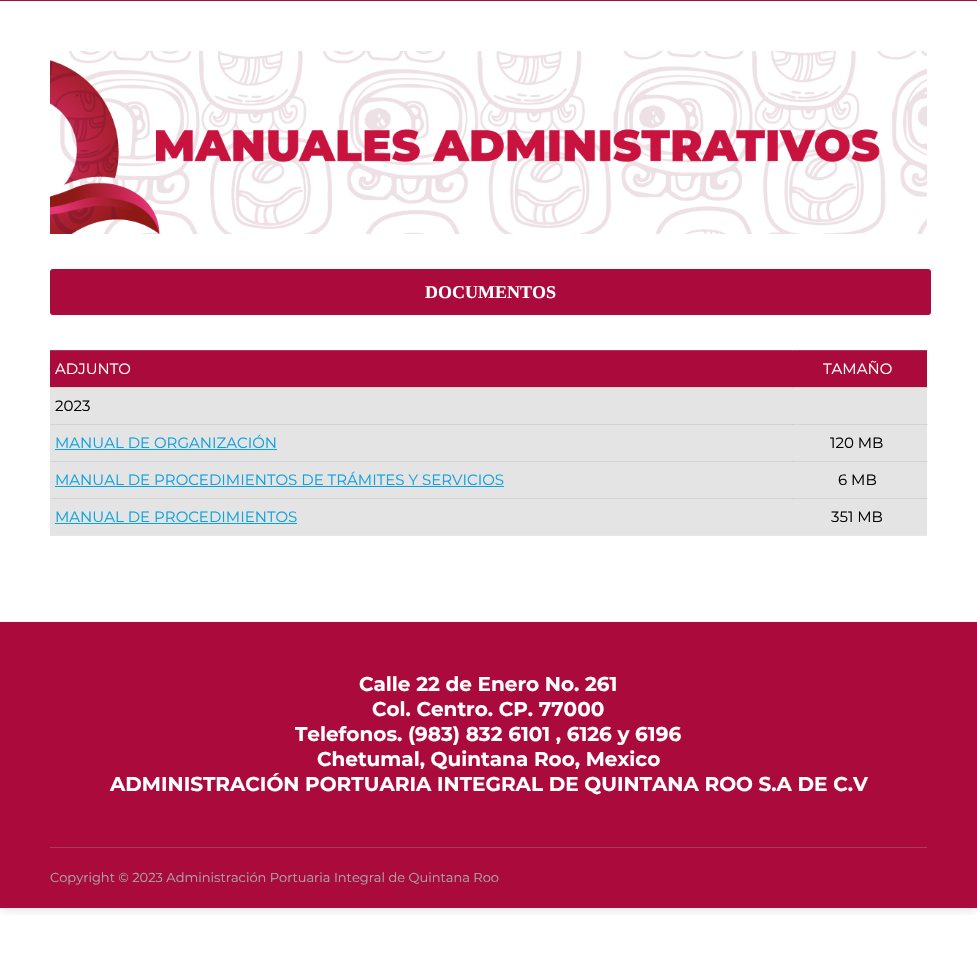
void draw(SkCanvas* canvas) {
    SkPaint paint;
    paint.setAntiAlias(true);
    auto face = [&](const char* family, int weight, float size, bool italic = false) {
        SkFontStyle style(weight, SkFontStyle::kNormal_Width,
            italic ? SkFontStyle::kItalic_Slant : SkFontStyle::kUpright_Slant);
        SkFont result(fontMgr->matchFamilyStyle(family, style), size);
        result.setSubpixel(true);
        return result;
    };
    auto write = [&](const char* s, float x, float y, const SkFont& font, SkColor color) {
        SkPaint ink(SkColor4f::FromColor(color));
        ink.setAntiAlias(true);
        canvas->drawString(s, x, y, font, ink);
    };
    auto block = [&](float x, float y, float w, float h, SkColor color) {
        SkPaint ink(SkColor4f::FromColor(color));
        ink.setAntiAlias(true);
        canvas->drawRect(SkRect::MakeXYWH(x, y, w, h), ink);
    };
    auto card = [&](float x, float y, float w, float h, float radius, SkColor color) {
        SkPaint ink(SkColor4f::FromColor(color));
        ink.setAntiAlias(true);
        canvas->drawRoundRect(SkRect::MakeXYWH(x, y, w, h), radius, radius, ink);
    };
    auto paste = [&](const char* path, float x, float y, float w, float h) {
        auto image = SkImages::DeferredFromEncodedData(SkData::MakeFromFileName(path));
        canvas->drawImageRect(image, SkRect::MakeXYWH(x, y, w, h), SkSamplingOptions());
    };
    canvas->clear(SK_ColorWHITE);
    block(927, 350, 1, 1, SkColorSetRGB(230, 230, 230));
    block(927, 387, 1, 1, SkColorSetRGB(230, 230, 230));
    block(927, 424, 1, 1, SkColorSetRGB(230, 230, 230));
    block(927, 461, 1, 1, SkColorSetRGB(230, 230, 230));
    block(927, 498, 1, 1, SkColorSetRGB(230, 230, 230));
    canvas->save();
    canvas->clipRect(SkRect::MakeXYWH(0, 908, 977, 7));
    paint.setColor(SkColorSetARGB(38, 0, 0, 0));
    paint.setMaskFilter(SkMaskFilter::MakeBlur(kNormal_SkBlurStyle, 6));
    canvas->drawRect(SkRect::MakeXYWH(0, 0, 977, 908), paint);
    paint.setMaskFilter(nullptr);
    canvas->restore();
    block(0, 0, 977, 1, SkColorSetRGB(171, 10, 61));
    paste("pic1.png", 50, 51, 877, 183);
    card(50, 269, 881, 46, 3, SkColorSetRGB(171, 10, 61));
    auto kFont1 = face("Liberation Serif", 700, 18);
    write("DOCUMENTOS", 425, 298, kFont1, SK_ColorWHITE);
    block(50, 535, 877, 1, SkColorSetRGB(230, 230, 230));
    block(50, 351, 877, 36, SkColorSetRGB(171, 10, 61));
    block(50, 350, 877, 1, SkColorSetRGB(171, 58, 94));
    block(792, 350, 1, 1, SkColorSetRGB(171, 92, 117));
    auto kFont2 = face("Montserrat", 400, 15);
    write("ADJUNTO", 55, 374, kFont2, SK_ColorWHITE);
    write("TAMAÑO", 823, 374, kFont2, SK_ColorWHITE);
    block(50, 388, 877, 147, SkColorSetRGB(228, 228, 228));
    block(50, 387, 877, 1, SkColorSetRGB(211, 211, 211));
    block(792, 387, 1, 1, SkColorSetRGB(199, 199, 199));
    block(50, 424, 877, 1, SkColorSetRGB(211, 211, 211));
    block(792, 424, 1, 1, SkColorSetRGB(199, 199, 199));
    block(50, 461, 877, 1, SkColorSetRGB(211, 211, 211));
    block(792, 461, 1, 1, SkColorSetRGB(199, 199, 199));
    block(50, 498, 877, 1, SkColorSetRGB(211, 211, 211));
    block(792, 498, 1, 1, SkColorSetRGB(199, 199, 199));
    write("2023", 55, 411, kFont2, SK_ColorBLACK);
    write("MANUAL DE ORGANIZACIÓN", 55, 448, kFont2, SkColorSetRGB(12, 162, 224));
    block(55, 449, 222, 1, SkColorSetRGB(12, 162, 224));
    write("120 MB", 830, 448, kFont2, SK_ColorBLACK);
    write("MANUAL DE PROCEDIMIENTOS DE TRÁMITES Y SERVICIOS", 55, 485, kFont2, SkColorSetRGB(12, 162, 224));
    block(55, 486, 449, 1, SkColorSetRGB(12, 162, 224));
    write("6 MB", 838, 485, kFont2, SK_ColorBLACK);
    write("MANUAL DE PROCEDIMIENTOS", 55, 522, kFont2, SkColorSetRGB(12, 162, 224));
    block(55, 523, 242, 1, SkColorSetRGB(12, 162, 224));
    write("351 MB", 831, 522, kFont2, SK_ColorBLACK);
    block(0, 622, 977, 286, SkColorSetRGB(171, 10, 61));
    block(0, 621, 977, 1, SkColorSetRGB(252, 245, 247));
    auto kFont3 = face("Montserrat", 700, 20);
    write("Calle 22 de Enero No. 261", 359, 691, kFont3, SK_ColorWHITE);
    write("Col. Centro. CP. 77000", 372, 716, kFont3, SK_ColorWHITE);
    write("Telefonos. (983) 832 6101 , 6126 y 6196", 295, 741, kFont3, SK_ColorWHITE);
    write("Chetumal, Quintana Roo, Mexico", 317, 766, kFont3, SK_ColorWHITE);
    write("ADMINISTRACIÓN PORTUARIA INTEGRAL DE QUINTANA ROO S.A DE C.V", 110, 791, kFont3, SK_ColorWHITE);
    block(50, 847, 877, 1, SkColorSetRGB(171, 58, 94));
    auto kFont4 = face("Montserrat", 400, 13);
    write("Copyright © 2023 Administración Portuaria Integral de Quintana Roo", 50, 882, kFont4, SkColorSetRGB(167, 170, 172));
}
